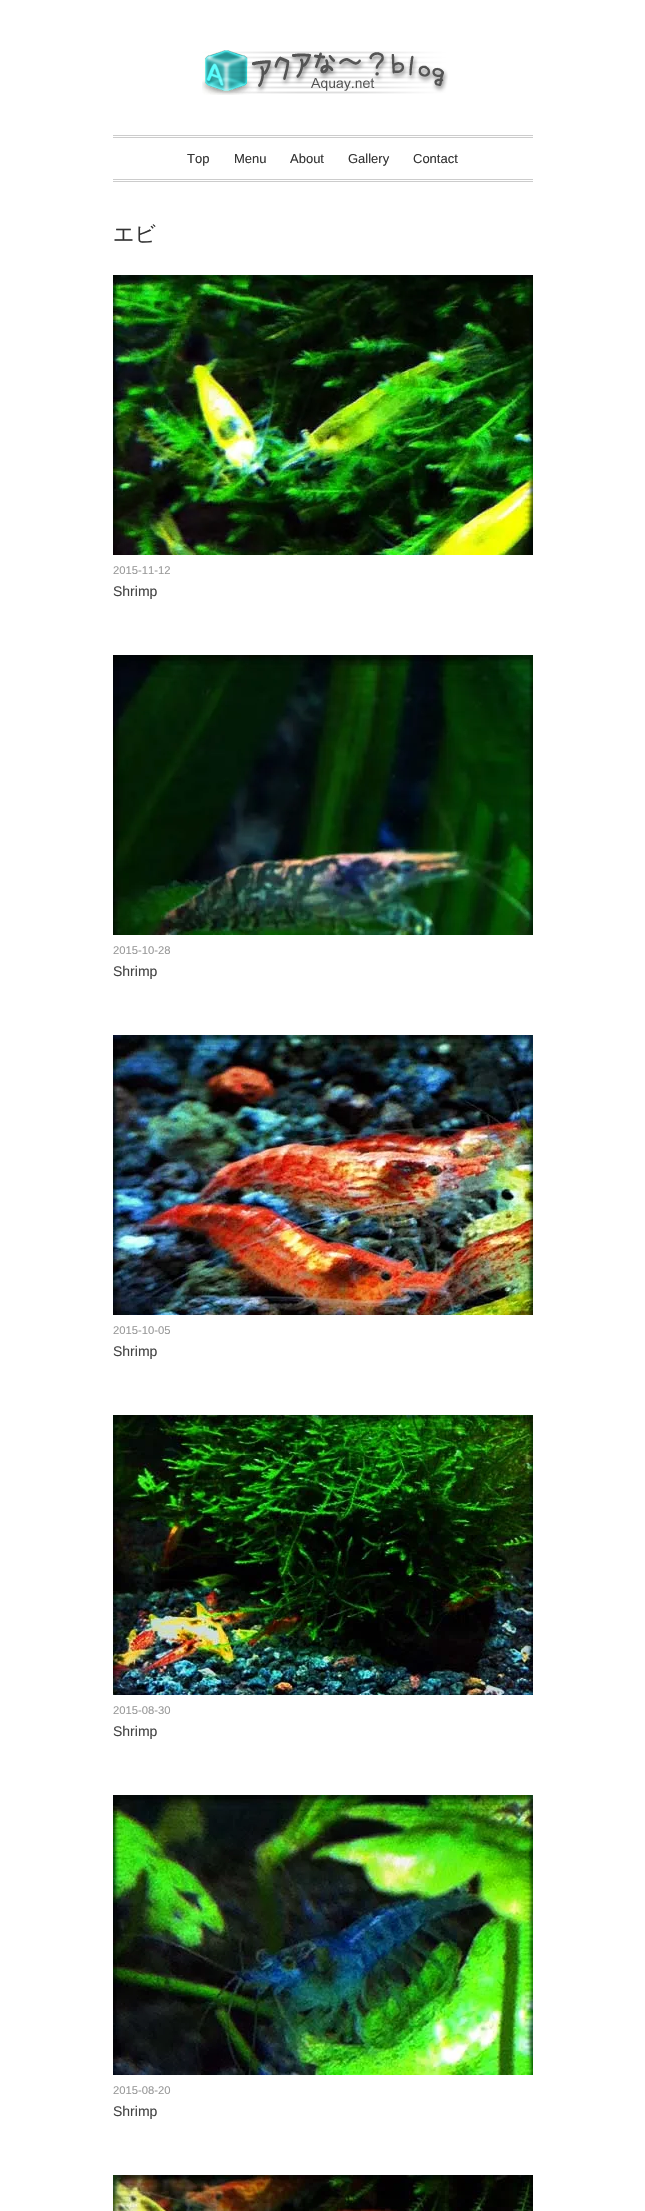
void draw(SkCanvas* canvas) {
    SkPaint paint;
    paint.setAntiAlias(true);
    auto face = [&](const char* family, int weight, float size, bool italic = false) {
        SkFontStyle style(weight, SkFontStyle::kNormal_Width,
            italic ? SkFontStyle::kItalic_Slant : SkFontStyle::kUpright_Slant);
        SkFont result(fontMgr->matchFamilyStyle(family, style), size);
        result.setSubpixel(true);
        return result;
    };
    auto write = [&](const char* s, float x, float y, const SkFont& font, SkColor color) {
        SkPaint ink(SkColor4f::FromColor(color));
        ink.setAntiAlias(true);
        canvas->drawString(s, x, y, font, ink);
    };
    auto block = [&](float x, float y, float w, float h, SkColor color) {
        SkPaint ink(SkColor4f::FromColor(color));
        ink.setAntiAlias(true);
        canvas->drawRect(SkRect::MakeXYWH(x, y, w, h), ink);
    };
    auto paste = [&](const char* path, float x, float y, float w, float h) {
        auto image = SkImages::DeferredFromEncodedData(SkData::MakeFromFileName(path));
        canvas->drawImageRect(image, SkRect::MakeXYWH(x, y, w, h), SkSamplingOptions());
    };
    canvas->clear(SK_ColorWHITE);
    paste("pic1.png", 202, 50, 246, 45);
    block(113, 135, 420, 1, SkColorSetRGB(204, 204, 204));
    block(113, 137, 420, 1, SkColorSetRGB(204, 204, 204));
    block(113, 179, 420, 1, SkColorSetRGB(204, 204, 204));
    block(113, 181, 420, 1, SkColorSetRGB(204, 204, 204));
    auto kFont1 = face("Liberation Sans", 400, 13);
    write("Top", 187, 163, kFont1, SkColorSetRGB(51, 51, 51));
    write("Menu", 234, 163, kFont1, SkColorSetRGB(51, 51, 51));
    write("About", 290, 163, kFont1, SkColorSetRGB(51, 51, 51));
    write("Gallery", 348, 163, kFont1, SkColorSetRGB(51, 51, 51));
    write("Contact", 413, 163, kFont1, SkColorSetRGB(51, 51, 51));
    auto kFont2 = face("WenQuanYi Zen Hei", 500, 21);
    write("エビ", 113, 241, kFont2, SkColorSetRGB(51, 51, 51));
    paste("pic2.png", 113, 275, 420, 280);
    auto kFont3 = face("Liberation Sans", 400, 11.25f);
    write("2015-11-12", 113, 574, kFont3, SkColorSetRGB(153, 153, 153));
    auto kFont4 = face("Liberation Sans", 400, 14);
    write("Shrimp", 113, 596, kFont4, SkColorSetRGB(68, 68, 68));
    paste("pic3.png", 113, 655, 420, 280);
    write("2015-10-28", 113, 954, kFont3, SkColorSetRGB(153, 153, 153));
    write("Shrimp", 113, 976, kFont4, SkColorSetRGB(68, 68, 68));
    paste("pic4.png", 113, 1035, 420, 280);
    write("2015-10-05", 113, 1334, kFont3, SkColorSetRGB(153, 153, 153));
    write("Shrimp", 113, 1356, kFont4, SkColorSetRGB(68, 68, 68));
    paste("pic5.png", 113, 1415, 420, 280);
    write("2015-08-30", 113, 1714, kFont3, SkColorSetRGB(153, 153, 153));
    write("Shrimp", 113, 1736, kFont4, SkColorSetRGB(68, 68, 68));
    paste("pic6.png", 113, 1795, 420, 280);
    write("2015-08-20", 113, 2094, kFont3, SkColorSetRGB(153, 153, 153));
    write("Shrimp", 113, 2116, kFont4, SkColorSetRGB(68, 68, 68));
    paste("pic7.png", 113, 2175, 420, 36);
}
